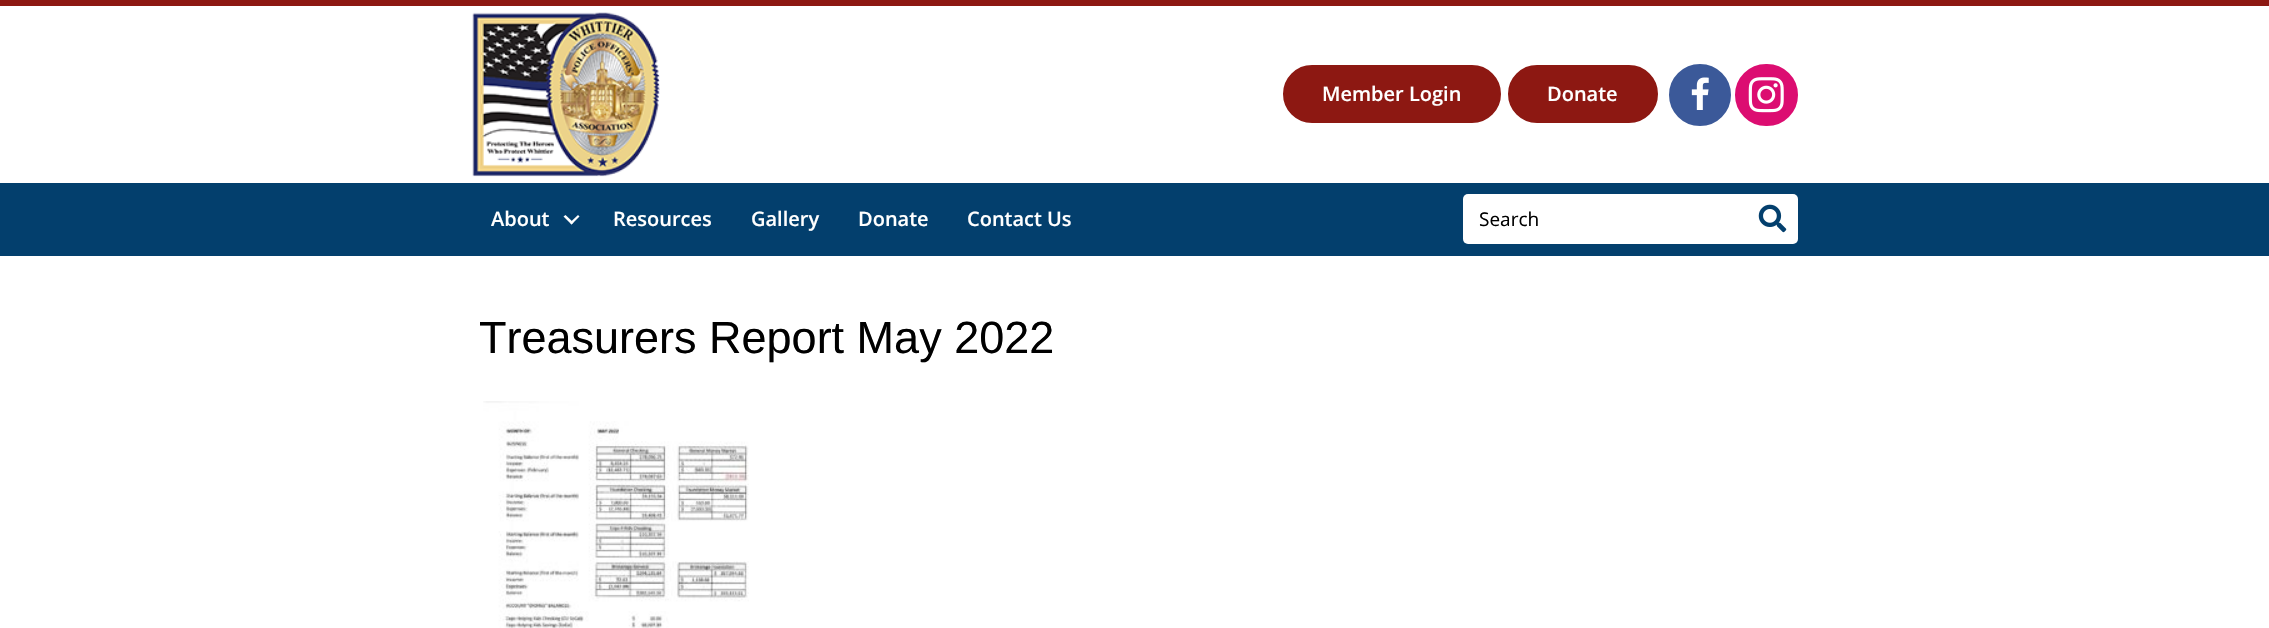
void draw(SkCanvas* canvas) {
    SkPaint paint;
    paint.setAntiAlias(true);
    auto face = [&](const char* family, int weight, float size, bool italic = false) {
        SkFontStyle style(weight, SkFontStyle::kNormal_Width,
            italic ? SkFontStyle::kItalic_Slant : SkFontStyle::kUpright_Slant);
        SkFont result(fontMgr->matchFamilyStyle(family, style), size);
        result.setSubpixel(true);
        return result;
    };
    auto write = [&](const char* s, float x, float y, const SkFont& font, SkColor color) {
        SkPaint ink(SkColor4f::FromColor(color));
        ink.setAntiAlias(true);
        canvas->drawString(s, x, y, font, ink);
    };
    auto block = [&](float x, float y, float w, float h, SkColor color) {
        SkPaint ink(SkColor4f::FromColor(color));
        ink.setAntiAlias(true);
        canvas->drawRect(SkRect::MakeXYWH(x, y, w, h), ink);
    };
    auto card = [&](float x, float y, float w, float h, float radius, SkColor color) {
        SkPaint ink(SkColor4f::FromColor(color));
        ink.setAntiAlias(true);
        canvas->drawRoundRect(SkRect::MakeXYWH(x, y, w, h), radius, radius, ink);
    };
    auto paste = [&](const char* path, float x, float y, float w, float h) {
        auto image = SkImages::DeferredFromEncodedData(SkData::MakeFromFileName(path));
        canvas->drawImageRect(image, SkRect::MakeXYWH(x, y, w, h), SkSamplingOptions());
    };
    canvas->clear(SK_ColorWHITE);
    block(0, 0, 2269, 6, SkColorSetRGB(141, 24, 18));
    paste("pic1.png", 472, 12, 188, 165);
    paint.setColor(SkColorSetRGB(141, 24, 18));
    canvas->drawRoundRect(SkRect::MakeXYWH(1284.5f, 66.5f, 215, 55), 27.5f, 27.5f, paint);
    paint.setStyle(SkPaint::kStroke_Style);
    paint.setStrokeWidth(3);
    canvas->drawRoundRect(SkRect::MakeXYWH(1284.5f, 66.5f, 215, 55), 27.5f, 27.5f, paint);
    auto kFont1 = face("Open Sans", 600, 20);
    write("Member Login", 1322, 101, kFont1, SK_ColorWHITE);
    paint.setStyle(SkPaint::kFill_Style);
    canvas->drawRoundRect(SkRect::MakeXYWH(1509.5f, 66.5f, 147, 55), 27.5f, 27.5f, paint);
    paint.setStyle(SkPaint::kStroke_Style);
    canvas->drawRoundRect(SkRect::MakeXYWH(1509.5f, 66.5f, 147, 55), 27.5f, 27.5f, paint);
    write("Donate", 1547, 101, kFont1, SK_ColorWHITE);
    paint.setStyle(SkPaint::kFill_Style);
    paint.setColor(SkColorSetRGB(59, 89, 153));
    canvas->drawCircle(1700, 95, 29.5f, paint);
    paint.setStyle(SkPaint::kStroke_Style);
    canvas->drawCircle(1700, 95, 29.5f, paint);
    paste("pic2.png", 1691, 77, 18, 33);
    paint.setStyle(SkPaint::kFill_Style);
    paint.setColor(SkColorSetRGB(220, 13, 113));
    canvas->drawRoundRect(SkRect::MakeXYWH(1736.5f, 65.5f, 60, 59), 29.5f, 29.5f, paint);
    paint.setStyle(SkPaint::kStroke_Style);
    canvas->drawRoundRect(SkRect::MakeXYWH(1736.5f, 65.5f, 60, 59), 29.5f, 29.5f, paint);
    paste("pic3.png", 1748, 77, 36, 36);
    block(0, 183, 2269, 73, SkColorSetRGB(3, 63, 109));
    write("About", 491, 226, kFont1, SK_ColorWHITE);
    paint.setStyle(SkPaint::kFill_Style);
    paint.setColor(SK_ColorWHITE);
    canvas->drawPath(SkPathBuilder().moveTo(578, 215).lineTo(579.5f, 216.5f).lineTo(571.5f, 224.5f).lineTo(570, 222.5f).close().detach(), paint);
    canvas->drawPath(SkPathBuilder().moveTo(565.5f, 215).lineTo(573.5f, 222.5f).lineTo(571.5f, 224.5f).lineTo(563.5f, 216.5f).close().detach(), paint);
    write("Resources", 613, 226, kFont1, SK_ColorWHITE);
    write("Gallery", 751, 226, kFont1, SK_ColorWHITE);
    write("Donate", 858, 226, kFont1, SK_ColorWHITE);
    write("Contact Us", 967, 226, kFont1, SK_ColorWHITE);
    card(1463, 194, 335, 50, 5, SK_ColorWHITE);
    auto kFont2 = face("Open Sans", 400, 19);
    write("Search", 1479, 226, kFont2, SK_ColorBLACK);
    paste("pic4.png", 1758, 204, 29, 29);
    auto kFont3 = face("Liberation Sans", 400, 45);
    write("Treasurers Report May 2022", 479, 353, kFont3, SK_ColorBLACK);
    paste("pic5.png", 483, 401, 266, 227);
}
